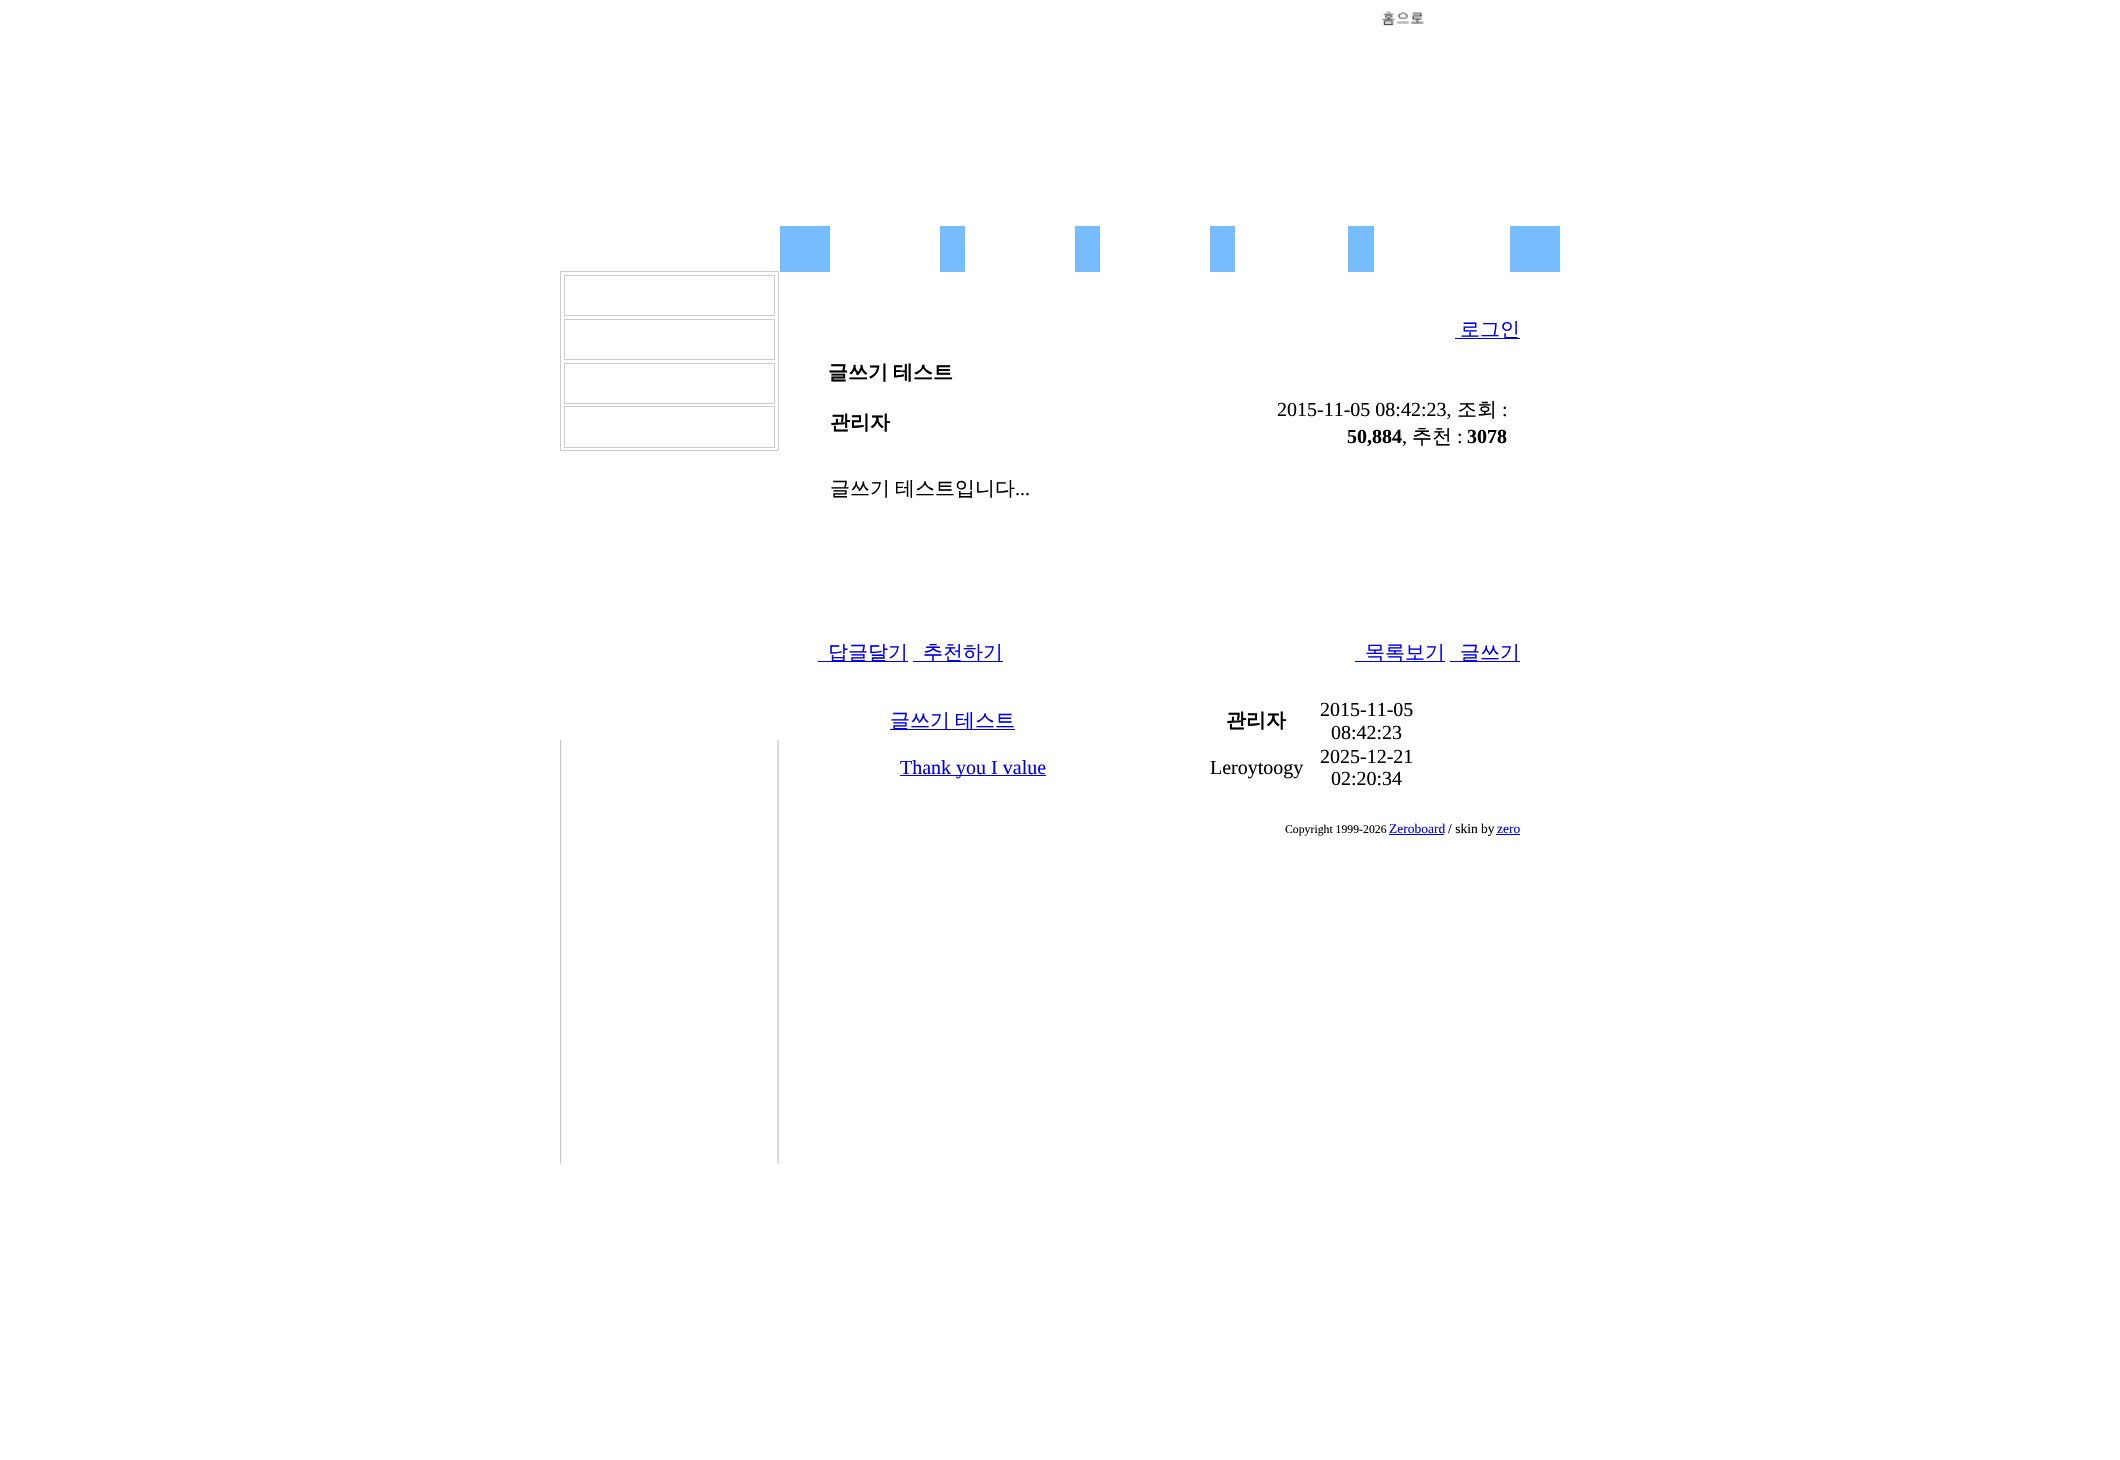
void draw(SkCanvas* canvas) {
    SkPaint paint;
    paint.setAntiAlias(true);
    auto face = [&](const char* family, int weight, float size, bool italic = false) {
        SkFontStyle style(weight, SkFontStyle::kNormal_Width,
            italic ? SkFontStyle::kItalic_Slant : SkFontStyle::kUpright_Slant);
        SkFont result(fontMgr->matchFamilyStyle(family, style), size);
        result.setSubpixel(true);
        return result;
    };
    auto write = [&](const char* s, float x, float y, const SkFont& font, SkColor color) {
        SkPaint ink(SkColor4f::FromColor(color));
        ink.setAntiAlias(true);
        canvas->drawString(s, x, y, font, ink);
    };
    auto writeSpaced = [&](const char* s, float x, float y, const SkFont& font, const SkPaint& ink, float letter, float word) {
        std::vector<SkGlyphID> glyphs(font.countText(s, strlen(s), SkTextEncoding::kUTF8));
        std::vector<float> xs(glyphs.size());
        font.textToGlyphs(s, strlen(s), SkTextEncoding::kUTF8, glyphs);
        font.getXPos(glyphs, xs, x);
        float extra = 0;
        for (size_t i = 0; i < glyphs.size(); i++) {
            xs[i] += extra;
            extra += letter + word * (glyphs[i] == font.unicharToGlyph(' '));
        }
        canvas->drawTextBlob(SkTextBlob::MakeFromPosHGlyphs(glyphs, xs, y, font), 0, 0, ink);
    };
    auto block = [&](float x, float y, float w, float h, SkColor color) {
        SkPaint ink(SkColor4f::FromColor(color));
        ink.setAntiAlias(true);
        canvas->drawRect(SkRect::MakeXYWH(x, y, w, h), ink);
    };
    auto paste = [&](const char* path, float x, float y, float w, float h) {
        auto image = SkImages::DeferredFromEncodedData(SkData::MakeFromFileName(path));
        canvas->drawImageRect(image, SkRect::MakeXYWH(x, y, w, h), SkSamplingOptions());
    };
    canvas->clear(SK_ColorWHITE);
    paste("pic1.png", 1382, 11, 42, 15);
    block(780, 226, 50, 46, SkColorSetRGB(119, 188, 255));
    block(940, 226, 25, 46, SkColorSetRGB(119, 188, 255));
    block(1075, 226, 25, 46, SkColorSetRGB(119, 188, 255));
    block(1210, 226, 25, 46, SkColorSetRGB(119, 188, 255));
    block(1348, 226, 26, 46, SkColorSetRGB(119, 188, 255));
    block(1510, 226, 50, 46, SkColorSetRGB(119, 188, 255));
    paint.setStyle(SkPaint::kStroke_Style);
    paint.setStrokeWidth(1);
    paint.setColor(SkColorSetRGB(204, 204, 204));
    canvas->drawRect(SkRect::MakeXYWH(560.5f, 271.5f, 218, 179), paint);
    canvas->drawRect(SkRect::MakeXYWH(564.5f, 275.5f, 210, 40), paint);
    canvas->drawRect(SkRect::MakeXYWH(564.5f, 319.5f, 210, 40), paint);
    canvas->drawRect(SkRect::MakeXYWH(564.5f, 363.5f, 210, 40), paint);
    canvas->drawRect(SkRect::MakeXYWH(564.5f, 406.5f, 210, 41), paint);
    paste("pic2.png", 560, 740, 2, 424);
    paste("pic3.png", 777, 740, 2, 424);
    block(1455, 338, 65, 1, SkColorSetRGB(0, 0, 238));
    auto kFont1 = face("WenQuanYi Zen Hei", 500, 20);
    write("로그인", 1460, 336, kFont1, SkColorSetRGB(0, 0, 238));
    auto kFont2 = face("WenQuanYi Zen Hei", 700, 20);
    paint.setStyle(SkPaint::kFill_Style);
    paint.setColor(SK_ColorBLACK);
    writeSpaced("글쓰기 테스트", 828, 379, kFont2, paint, 0, -1);
    write("관리자", 830, 429, kFont2, SK_ColorBLACK);
    auto kFont3 = face("Liberation Serif", 400, 20);
    write("2015-11-05 08:42:23,", 1277, 416, kFont3, SK_ColorBLACK);
    write("조회", 1457, 416, kFont1, SK_ColorBLACK);
    write(":", 1502, 416, kFont3, SK_ColorBLACK);
    auto kFont4 = face("Liberation Serif", 700, 20);
    write("50,884", 1347, 443, kFont4, SK_ColorBLACK);
    write(",", 1402, 443, kFont3, SK_ColorBLACK);
    write("추천", 1412, 443, kFont1, SK_ColorBLACK);
    write(":", 1457, 443, kFont3, SK_ColorBLACK);
    write("3078", 1467, 443, kFont4, SK_ColorBLACK);
    writeSpaced("글쓰기 테스트입니다", 830, 495, kFont1, paint, 0, -1);
    write("...", 1015, 495, kFont3, SK_ColorBLACK);
    block(818, 661, 90, 1, SkColorSetRGB(0, 0, 238));
    write("답글달기", 828, 659, kFont1, SkColorSetRGB(0, 0, 238));
    block(913, 661, 90, 1, SkColorSetRGB(0, 0, 238));
    write("추천하기", 923, 659, kFont1, SkColorSetRGB(0, 0, 238));
    block(1355, 661, 90, 1, SkColorSetRGB(0, 0, 238));
    write("목록보기", 1365, 659, kFont1, SkColorSetRGB(0, 0, 238));
    block(1450, 661, 70, 1, SkColorSetRGB(0, 0, 238));
    write("글쓰기", 1460, 659, kFont1, SkColorSetRGB(0, 0, 238));
    block(890, 729, 125, 1, SkColorSetRGB(0, 0, 238));
    paint.setColor(SkColorSetRGB(0, 0, 238));
    writeSpaced("글쓰기 테스트", 890, 727, kFont1, paint, 0, -1);
    write("관리자", 1226, 727, kFont2, SK_ColorBLACK);
    write("2015-11-05", 1320, 716, kFont3, SK_ColorBLACK);
    write("08:42:23", 1331, 739, kFont3, SK_ColorBLACK);
    block(900, 775, 146, 1, SkColorSetRGB(0, 0, 238));
    write("Thank you I value", 900, 774, kFont3, SkColorSetRGB(0, 0, 238));
    write("Leroytoogy", 1210, 774, kFont3, SK_ColorBLACK);
    write("2025-12-21", 1320, 763, kFont3, SK_ColorBLACK);
    write("02:20:34", 1331, 785, kFont3, SK_ColorBLACK);
    auto kFont5 = face("Liberation Serif", 400, 11.75f);
    write("Copyright 1999-2026", 1285, 833, kFont5, SK_ColorBLACK);
    auto kFont6 = face("Liberation Serif", 400, 13.5f);
    write("Zeroboard", 1389, 833, kFont6, SkColorSetRGB(0, 0, 238));
    block(1389, 834, 55, 1, SkColorSetRGB(0, 0, 238));
    write("/ skin by", 1448, 833, kFont6, SK_ColorBLACK);
    write("zero", 1497, 833, kFont6, SkColorSetRGB(0, 0, 238));
    block(1496, 834, 24, 1, SkColorSetRGB(0, 0, 238));
}
